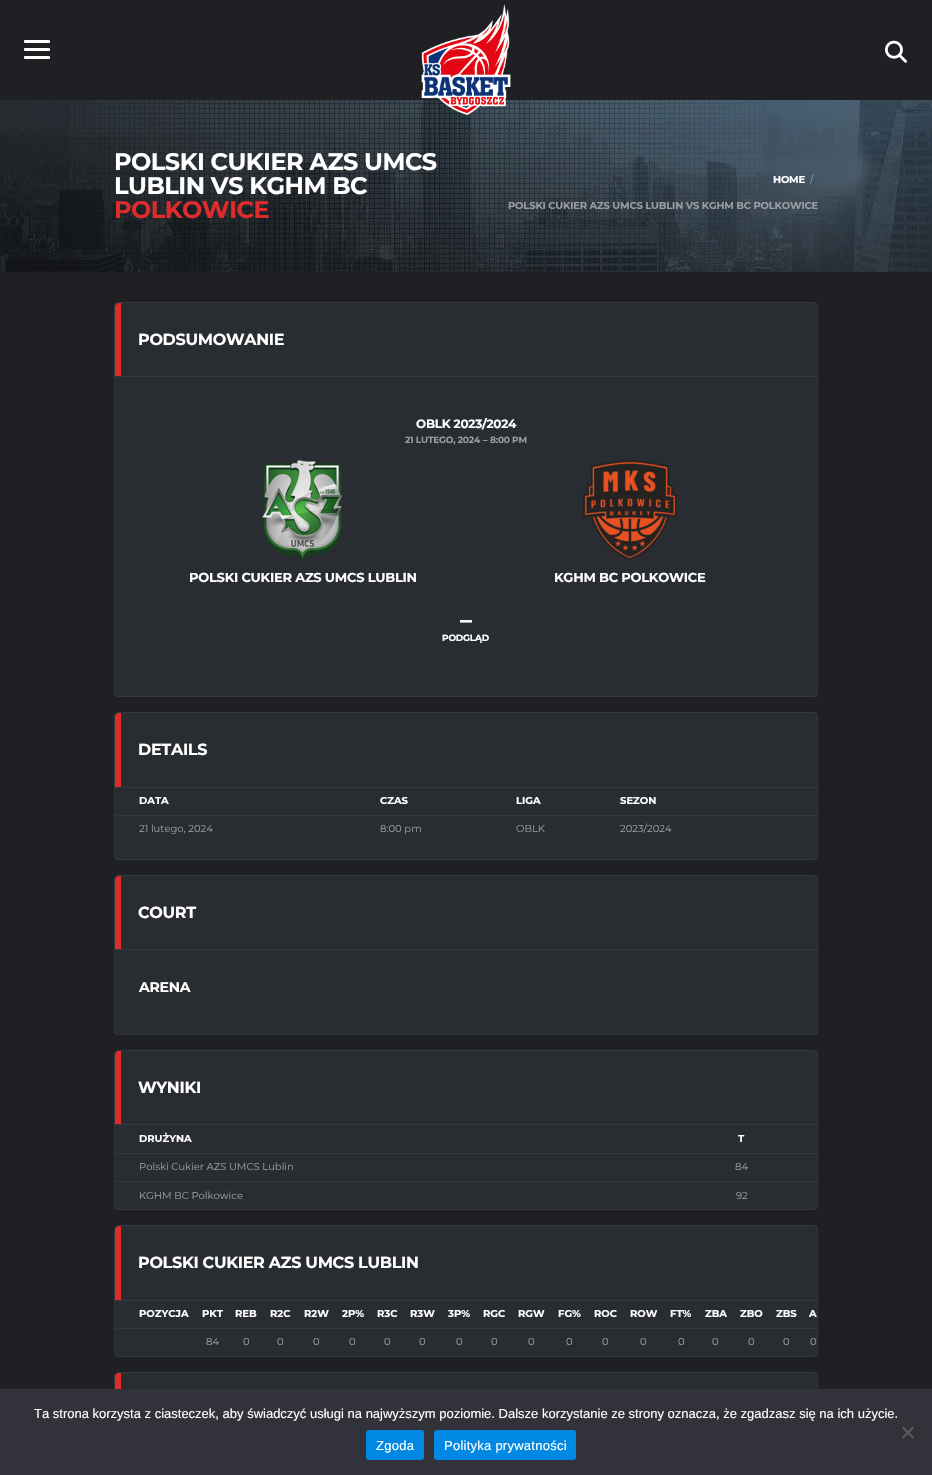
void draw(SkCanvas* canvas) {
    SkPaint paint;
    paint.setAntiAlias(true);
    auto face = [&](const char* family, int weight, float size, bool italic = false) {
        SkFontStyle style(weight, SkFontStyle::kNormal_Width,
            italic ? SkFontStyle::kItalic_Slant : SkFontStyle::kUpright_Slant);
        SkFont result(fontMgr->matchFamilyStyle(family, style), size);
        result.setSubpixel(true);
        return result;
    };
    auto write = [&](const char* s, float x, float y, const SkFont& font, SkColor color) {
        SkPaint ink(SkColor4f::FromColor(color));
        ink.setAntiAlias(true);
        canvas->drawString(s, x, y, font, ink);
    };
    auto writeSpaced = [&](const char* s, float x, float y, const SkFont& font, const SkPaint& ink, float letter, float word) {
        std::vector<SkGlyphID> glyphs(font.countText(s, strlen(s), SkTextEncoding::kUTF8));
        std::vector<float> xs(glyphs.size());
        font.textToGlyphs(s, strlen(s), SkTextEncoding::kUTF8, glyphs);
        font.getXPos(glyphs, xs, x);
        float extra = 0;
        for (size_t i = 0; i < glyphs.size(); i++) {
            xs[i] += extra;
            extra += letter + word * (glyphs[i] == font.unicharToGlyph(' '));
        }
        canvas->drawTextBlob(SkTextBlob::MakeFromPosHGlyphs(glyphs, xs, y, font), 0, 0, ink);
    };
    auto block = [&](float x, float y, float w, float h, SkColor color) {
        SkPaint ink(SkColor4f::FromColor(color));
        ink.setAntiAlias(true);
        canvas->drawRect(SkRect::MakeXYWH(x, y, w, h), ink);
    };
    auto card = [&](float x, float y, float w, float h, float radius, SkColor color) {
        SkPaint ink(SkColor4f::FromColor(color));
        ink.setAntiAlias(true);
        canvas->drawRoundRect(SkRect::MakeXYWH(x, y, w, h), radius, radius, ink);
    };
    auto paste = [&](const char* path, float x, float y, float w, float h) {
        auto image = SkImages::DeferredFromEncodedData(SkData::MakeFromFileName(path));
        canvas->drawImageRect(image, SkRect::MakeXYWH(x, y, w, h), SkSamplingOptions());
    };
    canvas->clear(SkColorSetRGB(30, 32, 36));
    paste("pic3.png", 0, 100, 932, 172);
    paste("pic4.png", 70, 100, 692, 172);
    paste("pic1.png", 421, 4, 90, 112);
    card(24, 40, 26, 3, 1, SK_ColorWHITE);
    card(24, 48, 26, 3, 1, SK_ColorWHITE);
    card(24, 56, 26, 3, 1, SK_ColorWHITE);
    paste("pic2.png", 885, 40, 22, 23);
    auto kFont1 = face("Montserrat", 700, 24);
    paint.setColor(SK_ColorWHITE);
    writeSpaced("POLSKI CUKIER AZS UMCS", 114, 170, kFont1, paint, -0.5f, 0);
    writeSpaced("LUBLIN VS KGHM BC", 114, 194, kFont1, paint, -0.5f, 0);
    paint.setColor(SkColorSetRGB(222, 44, 44));
    writeSpaced("POLKOWICE", 114, 218, kFont1, paint, -0.5f, 0);
    auto kFont2 = face("Montserrat", 700, 10);
    paint.setColor(SK_ColorWHITE);
    writeSpaced("HOME", 773, 183, kFont2, paint, -0.2f, 0);
    auto kFont3 = face("Montserrat", 400, 10);
    paint.setColor(SkColorSetRGB(154, 157, 162));
    writeSpaced("/", 810, 183, kFont3, paint, -0.2f, 0);
    writeSpaced("POLSKI CUKIER AZS UMCS LUBLIN VS KGHM BC POLKOWICE", 508, 209, kFont2, paint, -0.2f, 0);
    paint.setColor(SkColorSetRGB(41, 44, 49));
    canvas->drawRoundRect(SkRect::MakeXYWH(114.5f, 302.5f, 703, 394), 3.5f, 3.5f, paint);
    paint.setStyle(SkPaint::kStroke_Style);
    paint.setStrokeWidth(1);
    paint.setColor(SkColorSetRGB(52, 55, 60));
    canvas->drawRoundRect(SkRect::MakeXYWH(114.5f, 302.5f, 703, 394), 3.5f, 3.5f, paint);
    block(115, 376, 702, 1, SkColorSetRGB(52, 55, 60));
    paint.setStyle(SkPaint::kFill_Style);
    paint.setColor(SkColorSetRGB(222, 44, 44));
    canvas->drawPath(SkPathBuilder().moveTo(119, 303).lineTo(121, 303).lineTo(121, 376).lineTo(115, 376).lineTo(115, 307).cubicTo(115, 305, 117, 303, 119, 303).close().detach(), paint);
    auto kFont4 = face("Montserrat", 700, 16);
    paint.setColor(SK_ColorWHITE);
    writeSpaced("PODSUMOWANIE", 138, 345, kFont4, paint, -0.3f, 0);
    auto kFont5 = face("Montserrat", 700, 12);
    writeSpaced("OBLK 2023/2024", 416, 428, kFont5, paint, -0.25f, 0);
    auto kFont6 = face("Montserrat", 700, 9);
    paint.setColor(SkColorSetRGB(154, 157, 162));
    writeSpaced("21 LUTEGO, 2024", 405, 443, kFont6, paint, -0.2f, 0);
    writeSpaced("–", 483, 443, kFont6, paint, -0.2f, 0);
    writeSpaced("8:00 PM", 490, 443, kFont6, paint, -0.2f, 0);
    paste("pic5.png", 262, 460, 81, 100);
    auto kFont7 = face("Montserrat", 700, 13);
    paint.setColor(SK_ColorWHITE);
    writeSpaced("POLSKI CUKIER AZS UMCS LUBLIN", 189, 582, kFont7, paint, -0.25f, 0);
    paste("pic6.png", 583, 460, 94, 100);
    writeSpaced("KGHM BC POLKOWICE", 554, 582, kFont7, paint, -0.25f, 0);
    writeSpaced("–", 460, 628, kFont1, paint, -0.5f, 0);
    writeSpaced("PODGLĄD", 442, 641, kFont6, paint, -0.2f, 0);
    paint.setColor(SkColorSetRGB(41, 44, 49));
    canvas->drawRoundRect(SkRect::MakeXYWH(114.5f, 712.5f, 703, 147), 3.5f, 3.5f, paint);
    paint.setStyle(SkPaint::kStroke_Style);
    paint.setColor(SkColorSetRGB(52, 55, 60));
    canvas->drawRoundRect(SkRect::MakeXYWH(114.5f, 712.5f, 703, 147), 3.5f, 3.5f, paint);
    block(115, 787, 702, 1, SkColorSetRGB(52, 55, 60));
    paint.setStyle(SkPaint::kFill_Style);
    paint.setColor(SkColorSetRGB(222, 44, 44));
    canvas->drawPath(SkPathBuilder().moveTo(119, 713).lineTo(121, 713).lineTo(121, 787).lineTo(115, 787).lineTo(115, 717).cubicTo(115, 715, 117, 713, 119, 713).close().detach(), paint);
    paint.setColor(SK_ColorWHITE);
    writeSpaced("DETAILS", 138, 755, kFont4, paint, -0.3f, 0);
    write("DATA", 139, 804, kFont2, SK_ColorWHITE);
    write("CZAS", 380, 804, kFont2, SK_ColorWHITE);
    write("LIGA", 516, 804, kFont2, SK_ColorWHITE);
    write("SEZON", 620, 804, kFont2, SK_ColorWHITE);
    write("21 lutego, 2024", 139, 832, kFont3, SkColorSetRGB(154, 157, 162));
    write("8:00 pm", 380, 832, kFont3, SkColorSetRGB(154, 157, 162));
    write("OBLK", 516, 832, kFont3, SkColorSetRGB(154, 157, 162));
    block(115, 815, 702, 1, SkColorSetRGB(52, 55, 60));
    write("2023/2024", 620, 832, kFont3, SkColorSetRGB(154, 157, 162));
    paint.setColor(SkColorSetRGB(41, 44, 49));
    canvas->drawRoundRect(SkRect::MakeXYWH(114.5f, 875.5f, 703, 159), 3.5f, 3.5f, paint);
    paint.setStyle(SkPaint::kStroke_Style);
    paint.setColor(SkColorSetRGB(52, 55, 60));
    canvas->drawRoundRect(SkRect::MakeXYWH(114.5f, 875.5f, 703, 159), 3.5f, 3.5f, paint);
    block(115, 949, 702, 1, SkColorSetRGB(52, 55, 60));
    paint.setStyle(SkPaint::kFill_Style);
    paint.setColor(SkColorSetRGB(222, 44, 44));
    canvas->drawPath(SkPathBuilder().moveTo(119, 876).lineTo(121, 876).lineTo(121, 949).lineTo(115, 949).lineTo(115, 880).cubicTo(115, 878, 117, 876, 119, 876).close().detach(), paint);
    paint.setColor(SK_ColorWHITE);
    writeSpaced("COURT", 138, 918, kFont4, paint, -0.3f, 0);
    auto kFont8 = face("Montserrat", 700, 14);
    writeSpaced("ARENA", 139, 992, kFont8, paint, -0.25f, 0);
    paint.setColor(SkColorSetRGB(41, 44, 49));
    canvas->drawRoundRect(SkRect::MakeXYWH(114.5f, 1050.5f, 703, 159), 3.5f, 3.5f, paint);
    paint.setStyle(SkPaint::kStroke_Style);
    paint.setColor(SkColorSetRGB(52, 55, 60));
    canvas->drawRoundRect(SkRect::MakeXYWH(114.5f, 1050.5f, 703, 159), 3.5f, 3.5f, paint);
    block(115, 1124, 702, 1, SkColorSetRGB(52, 55, 60));
    paint.setStyle(SkPaint::kFill_Style);
    paint.setColor(SkColorSetRGB(222, 44, 44));
    canvas->drawPath(SkPathBuilder().moveTo(119, 1051).lineTo(121, 1051).lineTo(121, 1124).lineTo(115, 1124).lineTo(115, 1055).cubicTo(115, 1053, 117, 1051, 119, 1051).close().detach(), paint);
    paint.setColor(SK_ColorWHITE);
    writeSpaced("WYNIKI", 138, 1093, kFont4, paint, -0.3f, 0);
    write("DRUŻYNA", 139, 1142, kFont2, SK_ColorWHITE);
    write("T", 738, 1142, kFont2, SK_ColorWHITE);
    write("Polski Cukier AZS UMCS Lublin", 139, 1170, kFont3, SkColorSetRGB(154, 157, 162));
    block(115, 1153, 702, 1, SkColorSetRGB(52, 55, 60));
    write("84", 735, 1170, kFont3, SkColorSetRGB(154, 157, 162));
    write("KGHM BC Polkowice", 139, 1199, kFont3, SkColorSetRGB(154, 157, 162));
    block(115, 1181, 702, 1, SkColorSetRGB(52, 55, 60));
    write("92", 736, 1199, kFont3, SkColorSetRGB(154, 157, 162));
    paint.setColor(SkColorSetRGB(41, 44, 49));
    canvas->drawRoundRect(SkRect::MakeXYWH(114.5f, 1225.5f, 703, 131), 3.5f, 3.5f, paint);
    paint.setStyle(SkPaint::kStroke_Style);
    paint.setColor(SkColorSetRGB(52, 55, 60));
    canvas->drawRoundRect(SkRect::MakeXYWH(114.5f, 1225.5f, 703, 131), 3.5f, 3.5f, paint);
    block(115, 1300, 702, 1, SkColorSetRGB(52, 55, 60));
    paint.setStyle(SkPaint::kFill_Style);
    paint.setColor(SkColorSetRGB(222, 44, 44));
    canvas->drawPath(SkPathBuilder().moveTo(119, 1226).lineTo(121, 1226).lineTo(121, 1300).lineTo(115, 1300).lineTo(115, 1230).cubicTo(115, 1228, 117, 1226, 119, 1226).close().detach(), paint);
    paint.setColor(SK_ColorWHITE);
    writeSpaced("POLSKI CUKIER AZS UMCS LUBLIN", 138, 1268, kFont4, paint, -0.3f, 0);
    write("POZYCJA", 139, 1317, kFont2, SK_ColorWHITE);
    write("PKT", 202, 1317, kFont2, SK_ColorWHITE);
    write("REB", 235, 1317, kFont2, SK_ColorWHITE);
    write("R2C", 270, 1317, kFont2, SK_ColorWHITE);
    write("R2W", 304, 1317, kFont2, SK_ColorWHITE);
    write("2P%", 342, 1317, kFont2, SK_ColorWHITE);
    write("R3C", 377, 1317, kFont2, SK_ColorWHITE);
    write("R3W", 410, 1317, kFont2, SK_ColorWHITE);
    write("3P%", 448, 1317, kFont2, SK_ColorWHITE);
    write("RGC", 483, 1317, kFont2, SK_ColorWHITE);
    write("RGW", 518, 1317, kFont2, SK_ColorWHITE);
    write("FG%", 558, 1317, kFont2, SK_ColorWHITE);
    write("ROC", 594, 1317, kFont2, SK_ColorWHITE);
    write("ROW", 630, 1317, kFont2, SK_ColorWHITE);
    write("FT%", 670, 1317, kFont2, SK_ColorWHITE);
    write("ZBA", 705, 1317, kFont2, SK_ColorWHITE);
    write("ZBO", 740, 1317, kFont2, SK_ColorWHITE);
    write("ZBS", 776, 1317, kFont2, SK_ColorWHITE);
    write("A", 809, 1317, kFont2, SK_ColorWHITE);
    write("84", 206, 1345, kFont3, SkColorSetRGB(154, 157, 162));
    write("0", 243, 1345, kFont3, SkColorSetRGB(154, 157, 162));
    write("0", 277, 1345, kFont3, SkColorSetRGB(154, 157, 162));
    write("0", 313, 1345, kFont3, SkColorSetRGB(154, 157, 162));
    write("0", 349, 1345, kFont3, SkColorSetRGB(154, 157, 162));
    write("0", 384, 1345, kFont3, SkColorSetRGB(154, 157, 162));
    write("0", 419, 1345, kFont3, SkColorSetRGB(154, 157, 162));
    write("0", 456, 1345, kFont3, SkColorSetRGB(154, 157, 162));
    write("0", 491, 1345, kFont3, SkColorSetRGB(154, 157, 162));
    write("0", 528, 1345, kFont3, SkColorSetRGB(154, 157, 162));
    write("0", 566, 1345, kFont3, SkColorSetRGB(154, 157, 162));
    write("0", 602, 1345, kFont3, SkColorSetRGB(154, 157, 162));
    write("0", 640, 1345, kFont3, SkColorSetRGB(154, 157, 162));
    write("0", 678, 1345, kFont3, SkColorSetRGB(154, 157, 162));
    write("0", 712, 1345, kFont3, SkColorSetRGB(154, 157, 162));
    write("0", 748, 1345, kFont3, SkColorSetRGB(154, 157, 162));
    write("0", 783, 1345, kFont3, SkColorSetRGB(154, 157, 162));
    block(115, 1328, 702, 1, SkColorSetRGB(52, 55, 60));
    write("0", 810, 1345, kFont3, SkColorSetRGB(154, 157, 162));
    paint.setColor(SkColorSetRGB(41, 44, 49));
    canvas->drawRoundRect(SkRect::MakeXYWH(114.5f, 1372.5f, 703, 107), 3.5f, 3.5f, paint);
    paint.setStyle(SkPaint::kStroke_Style);
    paint.setColor(SkColorSetRGB(52, 55, 60));
    canvas->drawRoundRect(SkRect::MakeXYWH(114.5f, 1372.5f, 703, 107), 3.5f, 3.5f, paint);
    paint.setStyle(SkPaint::kFill_Style);
    paint.setColor(SkColorSetRGB(222, 44, 44));
    canvas->drawPath(SkPathBuilder().moveTo(119, 1373).lineTo(121, 1373).lineTo(121, 1446).lineTo(115, 1446).lineTo(115, 1377).cubicTo(115, 1375, 117, 1373, 119, 1373).close().detach(), paint);
    block(0, 1389, 932, 86, SkColorSetRGB(50, 50, 58));
    auto kFont9 = face("Liberation Sans", 400, 13);
    write("Ta strona korzysta z ciasteczek, aby świadczyć usługi na najwyższym poziomie. Dalsze korzystanie ze strony oznacza, że zgadzasz się na ich użycie.", 34, 1418, kFont9, SK_ColorWHITE);
    paint.setColor(SkColorSetRGB(89, 89, 93));
    canvas->drawPath(SkPathBuilder().moveTo(912.5f, 1426.5f).lineTo(914, 1428).lineTo(903.5f, 1438.5f).lineTo(902, 1437).close().detach(), paint);
    canvas->drawPath(SkPathBuilder().moveTo(902, 1428).lineTo(903.5f, 1426.5f).lineTo(914, 1437).lineTo(912.5f, 1438.5f).close().detach(), paint);
    card(366, 1430, 58, 30, 3, SkColorSetRGB(0, 136, 226));
    paint.setColor(SK_ColorWHITE);
    writeSpaced("Zgoda", 376, 1450, kFont9, paint, 0.25f, 0);
    card(434, 1430, 142, 30, 3, SkColorSetRGB(0, 136, 226));
    writeSpaced("Polityka prywatności", 444, 1450, kFont9, paint, 0.25f, 0);
}
